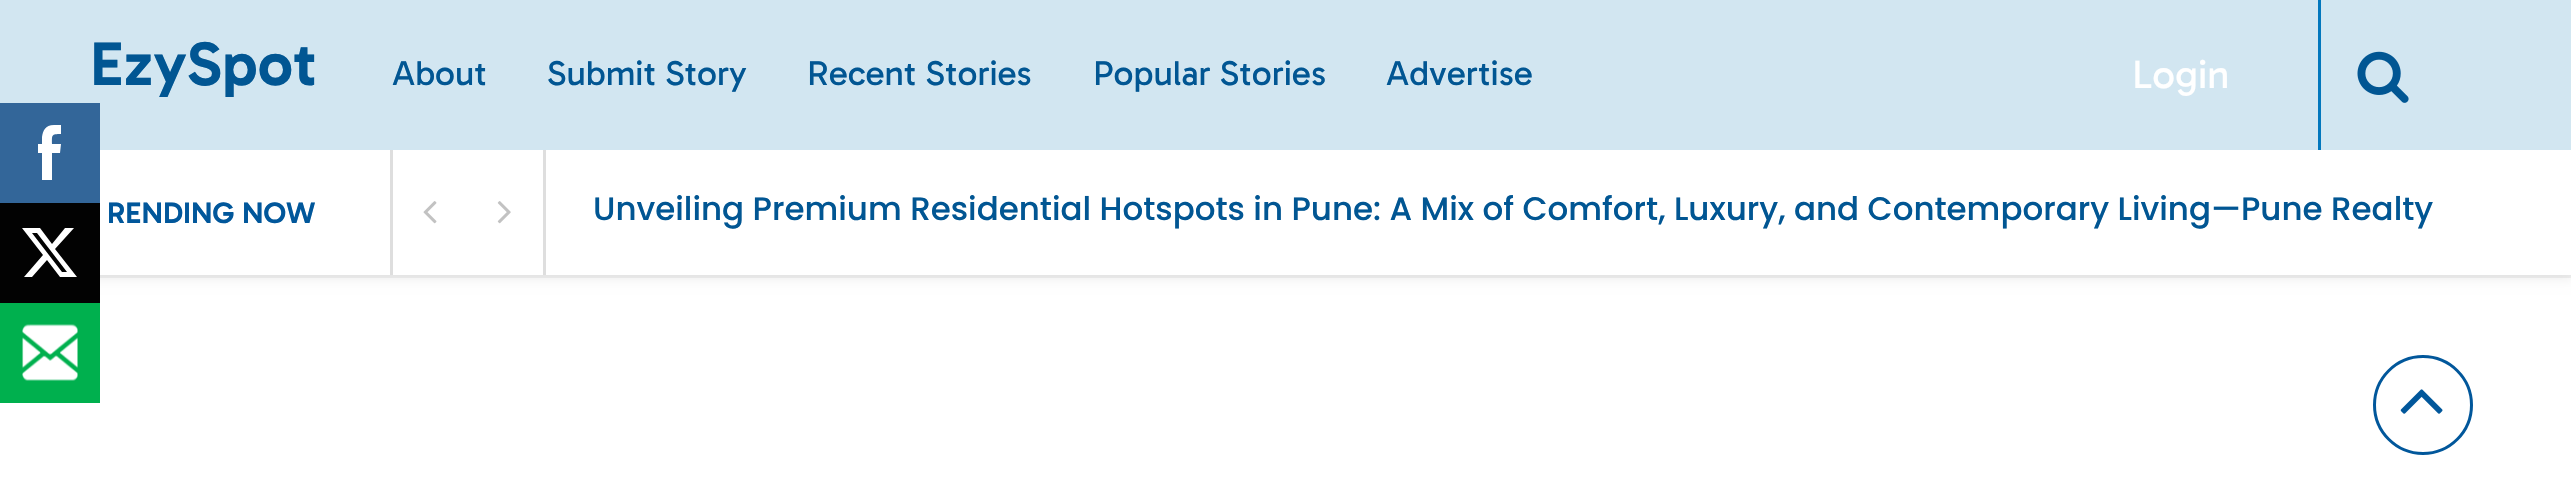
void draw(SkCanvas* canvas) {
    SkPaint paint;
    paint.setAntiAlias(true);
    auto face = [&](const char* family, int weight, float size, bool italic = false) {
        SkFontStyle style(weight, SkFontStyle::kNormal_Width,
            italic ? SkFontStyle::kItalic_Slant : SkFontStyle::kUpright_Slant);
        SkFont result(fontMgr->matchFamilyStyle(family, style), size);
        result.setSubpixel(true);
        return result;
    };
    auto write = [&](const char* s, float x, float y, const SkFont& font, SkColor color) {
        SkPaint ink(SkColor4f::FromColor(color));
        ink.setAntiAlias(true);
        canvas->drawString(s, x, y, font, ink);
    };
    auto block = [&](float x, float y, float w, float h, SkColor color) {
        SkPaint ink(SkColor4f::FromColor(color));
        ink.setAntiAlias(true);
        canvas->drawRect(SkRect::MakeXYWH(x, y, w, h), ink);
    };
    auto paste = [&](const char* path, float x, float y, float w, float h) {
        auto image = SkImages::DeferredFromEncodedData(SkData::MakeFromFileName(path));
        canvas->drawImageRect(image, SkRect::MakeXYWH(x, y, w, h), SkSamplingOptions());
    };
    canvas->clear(SK_ColorWHITE);
    paint.setColor(SkColorSetARGB(15, 0, 0, 0));
    paint.setMaskFilter(SkMaskFilter::MakeBlur(kNormal_SkBlurStyle, 5));
    canvas->drawRect(SkRect::MakeXYWH(0, 5, 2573, 275), paint);
    paint.setMaskFilter(nullptr);
    block(0, 0, 2571, 150, SkColorSetRGB(210, 230, 241));
    block(0, 103, 100, 100, SkColorSetRGB(51, 102, 153));
    paint.setColor(SK_ColorWHITE);
    canvas->drawPath(SkPathBuilder(SkPathFillType::kEvenOdd).moveTo(42, 180).lineTo(52, 180).lineTo(52, 153).lineTo(60, 153).lineTo(61, 144).lineTo(52, 144).cubicTo(52, 135, 51, 134, 61, 134).lineTo(61, 125).lineTo(54, 125).cubicTo(45, 125, 43, 131, 42, 137).lineTo(42, 144).lineTo(38, 144).lineTo(38, 153).lineTo(42, 153).close().detach(), paint);
    paint.setColor(SkColorSetARGB(13, 0, 0, 0));
    canvas->drawPath(SkPathBuilder().moveTo(0, 275).lineTo(0, 278).lineTo(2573, 278).lineTo(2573, 3).lineTo(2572, 3).lineTo(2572, 275).close().detach(), paint);
    block(0, 203, 100, 100, SkColorSetRGB(2, 2, 2));
    paint.setColor(SK_ColorWHITE);
    canvas->drawPath(SkPathBuilder().moveTo(65, 228).lineTo(74, 228).lineTo(55, 249).lineTo(77, 277).lineTo(60, 277).lineTo(47, 260).lineTo(32, 277).lineTo(24, 277).lineTo(43, 255).lineTo(22, 228).lineTo(40, 228).lineTo(52, 244).close().moveTo(62, 272).lineTo(67, 272).lineTo(37, 233).lineTo(32, 233).close().detach(), paint);
    block(0, 303, 100, 100, SkColorSetRGB(0, 176, 78));
    paste("pic1.png", 22, 324, 56, 57);
    auto kFont1 = face("Gabarito", 600, 62.5f);
    write("EzySpot", 90, 85, kFont1, SkColorSetRGB(1, 86, 147));
    auto kFont2 = face("Gabarito", 400, 35);
    write("About", 392, 85, kFont2, SkColorSetRGB(1, 86, 147));
    write("Submit Story", 547, 85, kFont2, SkColorSetRGB(1, 86, 147));
    write("Recent Stories", 807, 85, kFont2, SkColorSetRGB(1, 86, 147));
    write("Popular Stories", 1093, 85, kFont2, SkColorSetRGB(1, 86, 147));
    write("Advertise", 1386, 85, kFont2, SkColorSetRGB(1, 86, 147));
    auto kFont3 = face("Gabarito", 400, 40);
    write("Login", 2132, 88, kFont3, SK_ColorWHITE);
    block(2318, 0, 3, 150, SkColorSetRGB(2, 119, 189));
    paste("pic2.png", 2357, 51, 52, 52);
    block(100, 150, 2471, 125, SK_ColorWHITE);
    auto kFont4 = face("Gabarito", 600, 30);
    write("RENDING NOW", 107, 223, kFont4, SkColorSetRGB(1, 87, 155));
    block(390, 150, 3, 125, SkColorSetRGB(222, 222, 222));
    block(543, 150, 3, 125, SkColorSetRGB(222, 222, 222));
    paste("pic3.png", 423, 201, 14, 23);
    paste("pic4.png", 497, 201, 14, 23);
    auto kFont5 = face("Poppins", 500, 32.5f);
    write("Unveiling Premium Residential Hotspots in Pune: A Mix of Comfort, Luxury, and Contemporary Living—Pune Realty", 593, 220, kFont5, SkColorSetRGB(1, 86, 147));
    paint.setStyle(SkPaint::kStroke_Style);
    paint.setStrokeWidth(3);
    paint.setColor(SkColorSetRGB(1, 87, 155));
    canvas->drawCircle(2423, 405, 48.5f, paint);
    paste("pic5.png", 2400, 389, 43, 25);
}
